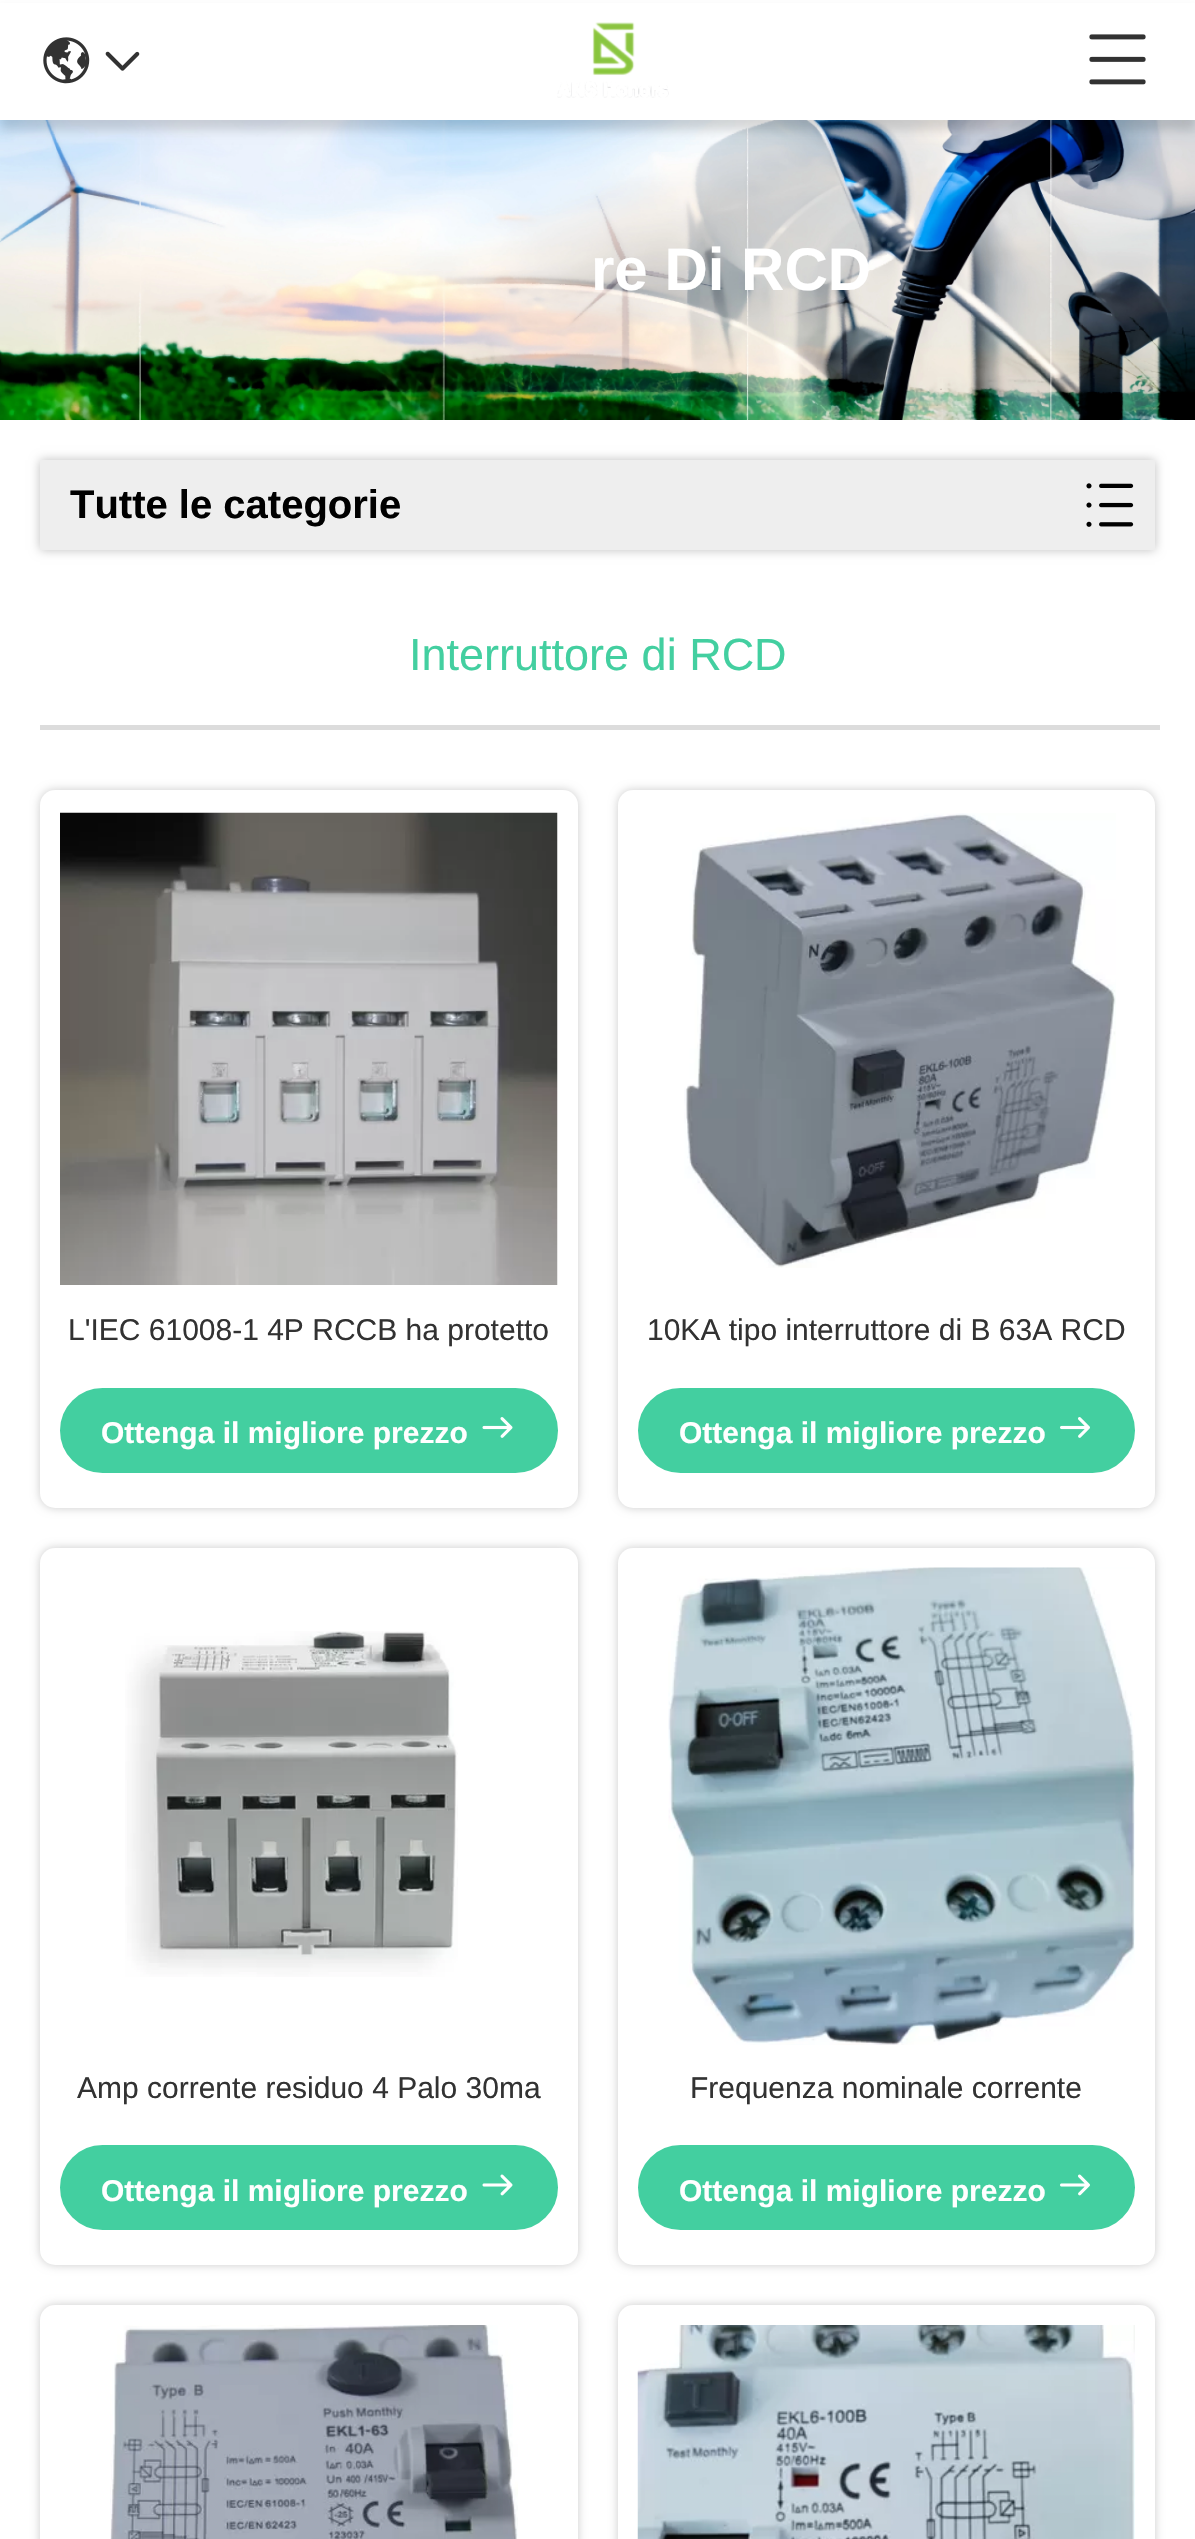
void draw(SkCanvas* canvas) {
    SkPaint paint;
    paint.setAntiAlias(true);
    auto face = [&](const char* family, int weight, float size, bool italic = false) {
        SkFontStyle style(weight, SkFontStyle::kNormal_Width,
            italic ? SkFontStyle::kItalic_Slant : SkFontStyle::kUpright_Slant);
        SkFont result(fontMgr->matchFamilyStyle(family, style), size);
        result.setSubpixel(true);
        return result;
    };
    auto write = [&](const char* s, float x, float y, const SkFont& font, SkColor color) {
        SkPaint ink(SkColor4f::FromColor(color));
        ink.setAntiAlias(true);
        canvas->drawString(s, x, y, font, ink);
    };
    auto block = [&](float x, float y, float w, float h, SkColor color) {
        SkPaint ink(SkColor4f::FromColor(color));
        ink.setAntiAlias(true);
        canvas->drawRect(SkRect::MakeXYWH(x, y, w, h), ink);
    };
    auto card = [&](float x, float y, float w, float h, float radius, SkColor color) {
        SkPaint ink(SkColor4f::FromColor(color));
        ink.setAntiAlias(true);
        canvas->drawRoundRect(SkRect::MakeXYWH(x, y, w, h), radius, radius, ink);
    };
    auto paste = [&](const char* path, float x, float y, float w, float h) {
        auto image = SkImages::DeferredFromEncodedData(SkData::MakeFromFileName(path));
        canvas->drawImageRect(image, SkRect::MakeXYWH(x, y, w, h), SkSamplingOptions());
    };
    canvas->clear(SK_ColorWHITE);
    paste("pic5.png", 0, 120, 1195, 300);
    paint.setColor(SkColorSetARGB(38, 0, 0, 0));
    paint.setMaskFilter(SkMaskFilter::MakeBlur(kNormal_SkBlurStyle, 5));
    canvas->drawRect(SkRect::MakeXYWH(0, 10, 1195, 120), paint);
    paint.setMaskFilter(nullptr);
    block(0, 3, 1195, 117, SK_ColorWHITE);
    paste("pic1.png", 43, 37, 47, 47);
    paste("pic2.png", 105, 51, 35, 20);
    paste("pic3.png", 557, 22, 112, 76);
    paste("pic4.png", 1089, 34, 57, 51);
    auto kFont1 = face("Liberation Sans", 700, 60);
    write("re Di RCD", 591, 290, kFont1, SK_ColorWHITE);
    paint.setColor(SkColorSetARGB(64, 0, 0, 0));
    paint.setMaskFilter(SkMaskFilter::MakeBlur(kNormal_SkBlurStyle, 5));
    canvas->drawRect(SkRect::MakeXYWH(40, 460, 1115, 90), paint);
    paint.setMaskFilter(nullptr);
    block(40, 460, 1115, 90, SkColorSetRGB(238, 238, 238));
    auto kFont2 = face("Liberation Sans", 700, 40);
    write("Tutte le categorie", 70, 518, kFont2, SK_ColorBLACK);
    paste("pic6.png", 1086, 483, 48, 44);
    auto kFont3 = face("Liberation Sans", 400, 45);
    write("Interruttore di RCD", 409, 670, kFont3, SkColorSetRGB(67, 207, 160));
    block(40, 725, 1120, 5, SkColorSetRGB(220, 220, 220));
    paint.setColor(SkColorSetARGB(51, 0, 0, 0));
    paint.setMaskFilter(SkMaskFilter::MakeBlur(kNormal_SkBlurStyle, 5));
    canvas->drawRoundRect(SkRect::MakeXYWH(40, 790, 538, 718), 15, 15, paint);
    paint.setMaskFilter(nullptr);
    card(40, 790, 538, 718, 15, SK_ColorWHITE);
    paste("pic7.png", 60, 812, 498, 473);
    auto kFont4 = face("Liberation Sans", 400, 30);
    write("L'IEC 61008-1 4P RCCB ha protetto", 68, 1340, kFont4, SkColorSetRGB(50, 50, 50));
    paint.setColor(SkColorSetRGB(67, 207, 160));
    canvas->drawRoundRect(SkRect::MakeXYWH(62.5f, 1390.5f, 493, 80), 40, 40, paint);
    paint.setStyle(SkPaint::kStroke_Style);
    paint.setStrokeWidth(5);
    canvas->drawRoundRect(SkRect::MakeXYWH(62.5f, 1390.5f, 493, 80), 40, 40, paint);
    auto kFont5 = face("Liberation Sans", 700, 30);
    write("Ottenga il migliore prezzo", 101, 1443, kFont5, SK_ColorWHITE);
    paste("pic8.png", 482, 1417, 31, 21);
    paint.setStyle(SkPaint::kFill_Style);
    paint.setColor(SkColorSetARGB(51, 0, 0, 0));
    paint.setMaskFilter(SkMaskFilter::MakeBlur(kNormal_SkBlurStyle, 5));
    canvas->drawRoundRect(SkRect::MakeXYWH(618, 790, 537, 718), 15, 15, paint);
    paint.setMaskFilter(nullptr);
    card(618, 790, 537, 718, 15, SK_ColorWHITE);
    paste("pic9.png", 684, 813, 432, 455);
    write("10KA tipo interruttore di B 63A RCD", 647, 1340, kFont4, SkColorSetRGB(50, 50, 50));
    paint.setColor(SkColorSetRGB(67, 207, 160));
    canvas->drawRoundRect(SkRect::MakeXYWH(640.5f, 1390.5f, 492, 80), 40, 40, paint);
    paint.setStyle(SkPaint::kStroke_Style);
    canvas->drawRoundRect(SkRect::MakeXYWH(640.5f, 1390.5f, 492, 80), 40, 40, paint);
    write("Ottenga il migliore prezzo", 679, 1443, kFont5, SK_ColorWHITE);
    paste("pic10.png", 1060, 1417, 30, 21);
    paint.setStyle(SkPaint::kFill_Style);
    paint.setColor(SkColorSetARGB(51, 0, 0, 0));
    paint.setMaskFilter(SkMaskFilter::MakeBlur(kNormal_SkBlurStyle, 5));
    canvas->drawRoundRect(SkRect::MakeXYWH(40, 1548, 538, 717), 15, 15, paint);
    paint.setMaskFilter(nullptr);
    card(40, 1548, 538, 717, 15, SK_ColorWHITE);
    paste("pic11.png", 125, 1631, 333, 346);
    write("Amp corrente residuo 4 Palo 30ma", 77, 2098, kFont4, SkColorSetRGB(50, 50, 50));
    paint.setColor(SkColorSetRGB(67, 207, 160));
    canvas->drawRoundRect(SkRect::MakeXYWH(62.5f, 2147.5f, 493, 80), 40, 40, paint);
    paint.setStyle(SkPaint::kStroke_Style);
    canvas->drawRoundRect(SkRect::MakeXYWH(62.5f, 2147.5f, 493, 80), 40, 40, paint);
    write("Ottenga il migliore prezzo", 101, 2201, kFont5, SK_ColorWHITE);
    paste("pic12.png", 482, 2174, 31, 22);
    paint.setStyle(SkPaint::kFill_Style);
    paint.setColor(SkColorSetARGB(51, 0, 0, 0));
    paint.setMaskFilter(SkMaskFilter::MakeBlur(kNormal_SkBlurStyle, 5));
    canvas->drawRoundRect(SkRect::MakeXYWH(618, 1548, 537, 717), 15, 15, paint);
    paint.setMaskFilter(nullptr);
    card(618, 1548, 537, 717, 15, SK_ColorWHITE);
    paste("pic13.png", 668, 1567, 467, 478);
    write("Frequenza nominale corrente", 690, 2098, kFont4, SkColorSetRGB(50, 50, 50));
    paint.setColor(SkColorSetRGB(67, 207, 160));
    canvas->drawRoundRect(SkRect::MakeXYWH(640.5f, 2147.5f, 492, 80), 40, 40, paint);
    paint.setStyle(SkPaint::kStroke_Style);
    canvas->drawRoundRect(SkRect::MakeXYWH(640.5f, 2147.5f, 492, 80), 40, 40, paint);
    write("Ottenga il migliore prezzo", 679, 2201, kFont5, SK_ColorWHITE);
    paste("pic14.png", 1060, 2174, 30, 22);
    paint.setStyle(SkPaint::kFill_Style);
    paint.setColor(SkColorSetARGB(51, 0, 0, 0));
    paint.setMaskFilter(SkMaskFilter::MakeBlur(kNormal_SkBlurStyle, 5));
    canvas->drawRoundRect(SkRect::MakeXYWH(40, 2305, 538, 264), 15, 15, paint);
    paint.setMaskFilter(nullptr);
    card(40, 2305, 538, 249, 15, SK_ColorWHITE);
    paste("pic15.png", 110, 2325, 408, 214);
    paint.setMaskFilter(SkMaskFilter::MakeBlur(kNormal_SkBlurStyle, 5));
    canvas->drawRoundRect(SkRect::MakeXYWH(618, 2305, 537, 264), 15, 15, paint);
    paint.setMaskFilter(nullptr);
    card(618, 2305, 537, 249, 15, SK_ColorWHITE);
    paste("pic16.png", 637, 2325, 498, 214);
}
